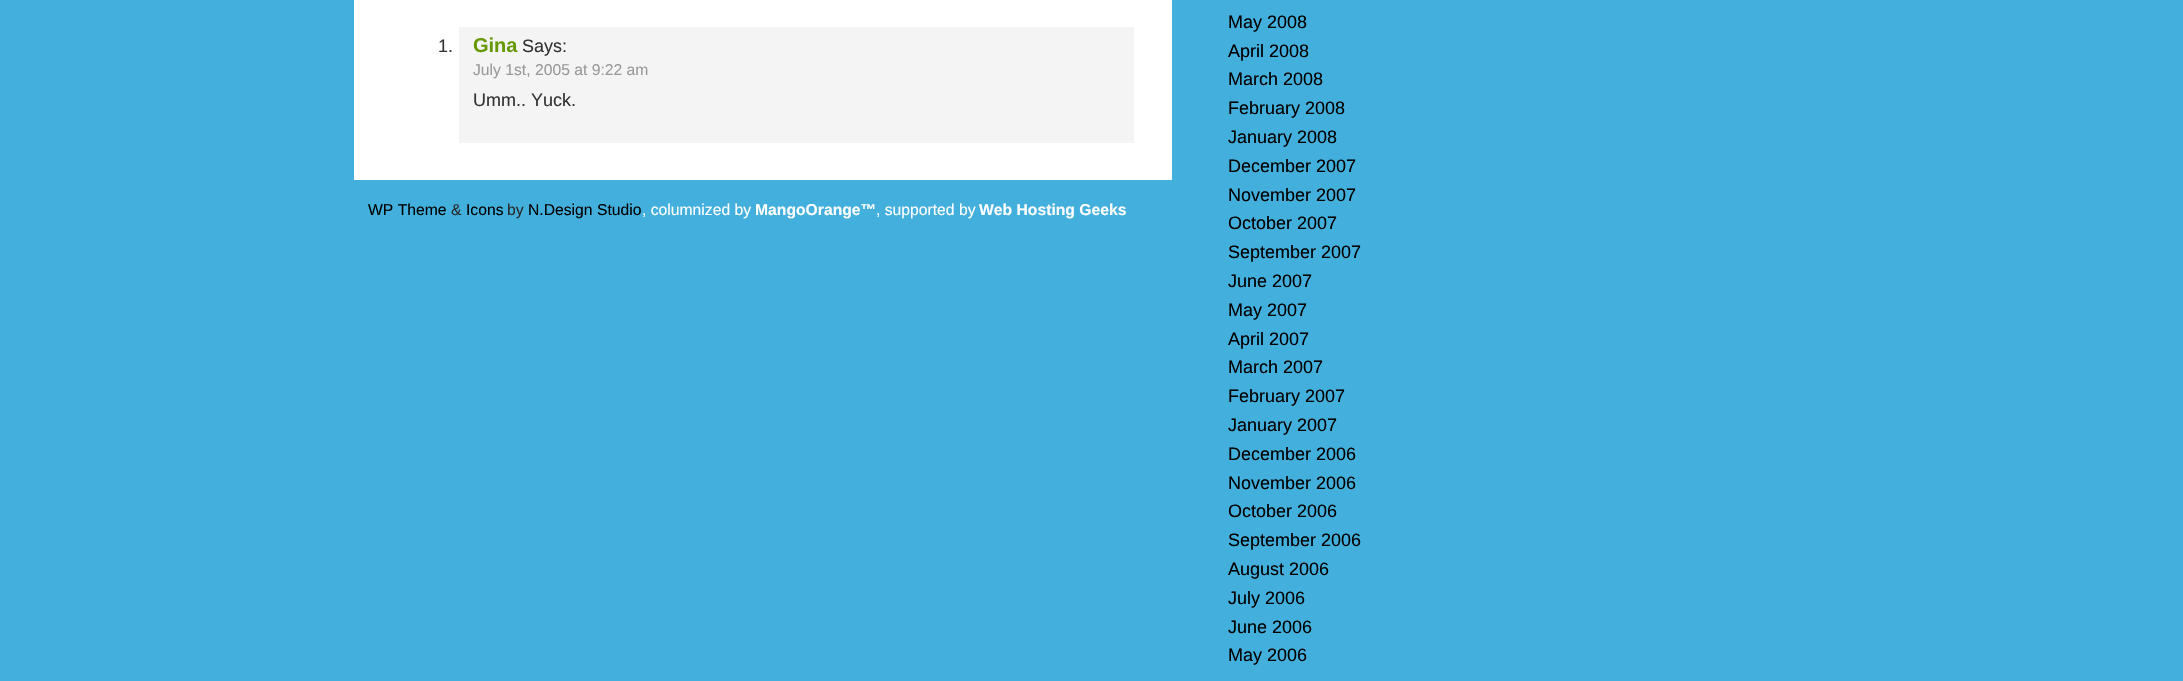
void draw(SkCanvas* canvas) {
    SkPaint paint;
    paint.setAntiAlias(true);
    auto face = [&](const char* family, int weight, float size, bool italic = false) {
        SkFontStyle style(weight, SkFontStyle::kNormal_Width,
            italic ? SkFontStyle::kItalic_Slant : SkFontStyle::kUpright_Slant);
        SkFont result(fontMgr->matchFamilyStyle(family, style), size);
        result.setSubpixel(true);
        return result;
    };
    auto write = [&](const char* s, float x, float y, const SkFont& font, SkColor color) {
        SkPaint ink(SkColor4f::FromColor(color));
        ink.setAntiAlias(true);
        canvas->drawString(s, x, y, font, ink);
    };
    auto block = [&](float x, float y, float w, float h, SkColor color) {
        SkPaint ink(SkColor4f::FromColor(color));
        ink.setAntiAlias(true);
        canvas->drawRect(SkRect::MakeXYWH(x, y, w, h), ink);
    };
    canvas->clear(SkColorSetRGB(66, 175, 220));
    block(354, 0, 818, 180, SK_ColorWHITE);
    block(459, 27, 675, 116, SkColorSetRGB(244, 244, 244));
    auto kFont1 = face("Liberation Sans", 400, 18);
    write("1.", 438, 52, kFont1, SkColorSetRGB(51, 51, 51));
    auto kFont2 = face("Liberation Sans", 700, 20);
    write("Gina", 473, 52, kFont2, SkColorSetRGB(102, 153, 0));
    write("Says:", 522, 52, kFont1, SkColorSetRGB(51, 51, 51));
    auto kFont3 = face("Liberation Sans", 400, 15.7f);
    write("July 1st, 2005 at 9:22 am", 473, 75, kFont3, SkColorSetRGB(153, 153, 153));
    write("Umm.. Yuck.", 473, 106, kFont1, SkColorSetRGB(51, 51, 51));
    write("WP Theme", 368, 215, kFont3, SK_ColorBLACK);
    write("&", 451, 215, kFont3, SkColorSetRGB(40, 40, 40));
    write("Icons", 466, 215, kFont3, SK_ColorBLACK);
    write("by", 507, 215, kFont3, SkColorSetRGB(40, 40, 40));
    write("N.Design Studio", 528, 215, kFont3, SK_ColorBLACK);
    write(", columnized by", 642, 215, kFont3, SK_ColorWHITE);
    auto kFont4 = face("Liberation Sans", 700, 15.7f);
    write("MangoOrange™", 755, 215, kFont4, SK_ColorWHITE);
    write(", supported by", 876, 215, kFont3, SK_ColorWHITE);
    write("Web Hosting Geeks", 979, 215, kFont4, SK_ColorWHITE);
    write("May 2008", 1228, 28, kFont1, SK_ColorBLACK);
    write("April 2008", 1228, 57, kFont1, SK_ColorBLACK);
    write("March 2008", 1228, 85, kFont1, SK_ColorBLACK);
    write("February 2008", 1228, 114, kFont1, SK_ColorBLACK);
    write("January 2008", 1228, 143, kFont1, SK_ColorBLACK);
    write("December 2007", 1228, 172, kFont1, SK_ColorBLACK);
    write("November 2007", 1228, 201, kFont1, SK_ColorBLACK);
    write("October 2007", 1228, 229, kFont1, SK_ColorBLACK);
    write("September 2007", 1228, 258, kFont1, SK_ColorBLACK);
    write("June 2007", 1228, 287, kFont1, SK_ColorBLACK);
    write("May 2007", 1228, 316, kFont1, SK_ColorBLACK);
    write("April 2007", 1228, 345, kFont1, SK_ColorBLACK);
    write("March 2007", 1228, 373, kFont1, SK_ColorBLACK);
    write("February 2007", 1228, 402, kFont1, SK_ColorBLACK);
    write("January 2007", 1228, 431, kFont1, SK_ColorBLACK);
    write("December 2006", 1228, 460, kFont1, SK_ColorBLACK);
    write("November 2006", 1228, 489, kFont1, SK_ColorBLACK);
    write("October 2006", 1228, 517, kFont1, SK_ColorBLACK);
    write("September 2006", 1228, 546, kFont1, SK_ColorBLACK);
    write("August 2006", 1228, 575, kFont1, SK_ColorBLACK);
    write("July 2006", 1228, 604, kFont1, SK_ColorBLACK);
    write("June 2006", 1228, 633, kFont1, SK_ColorBLACK);
    write("May 2006", 1228, 661, kFont1, SK_ColorBLACK);
}
